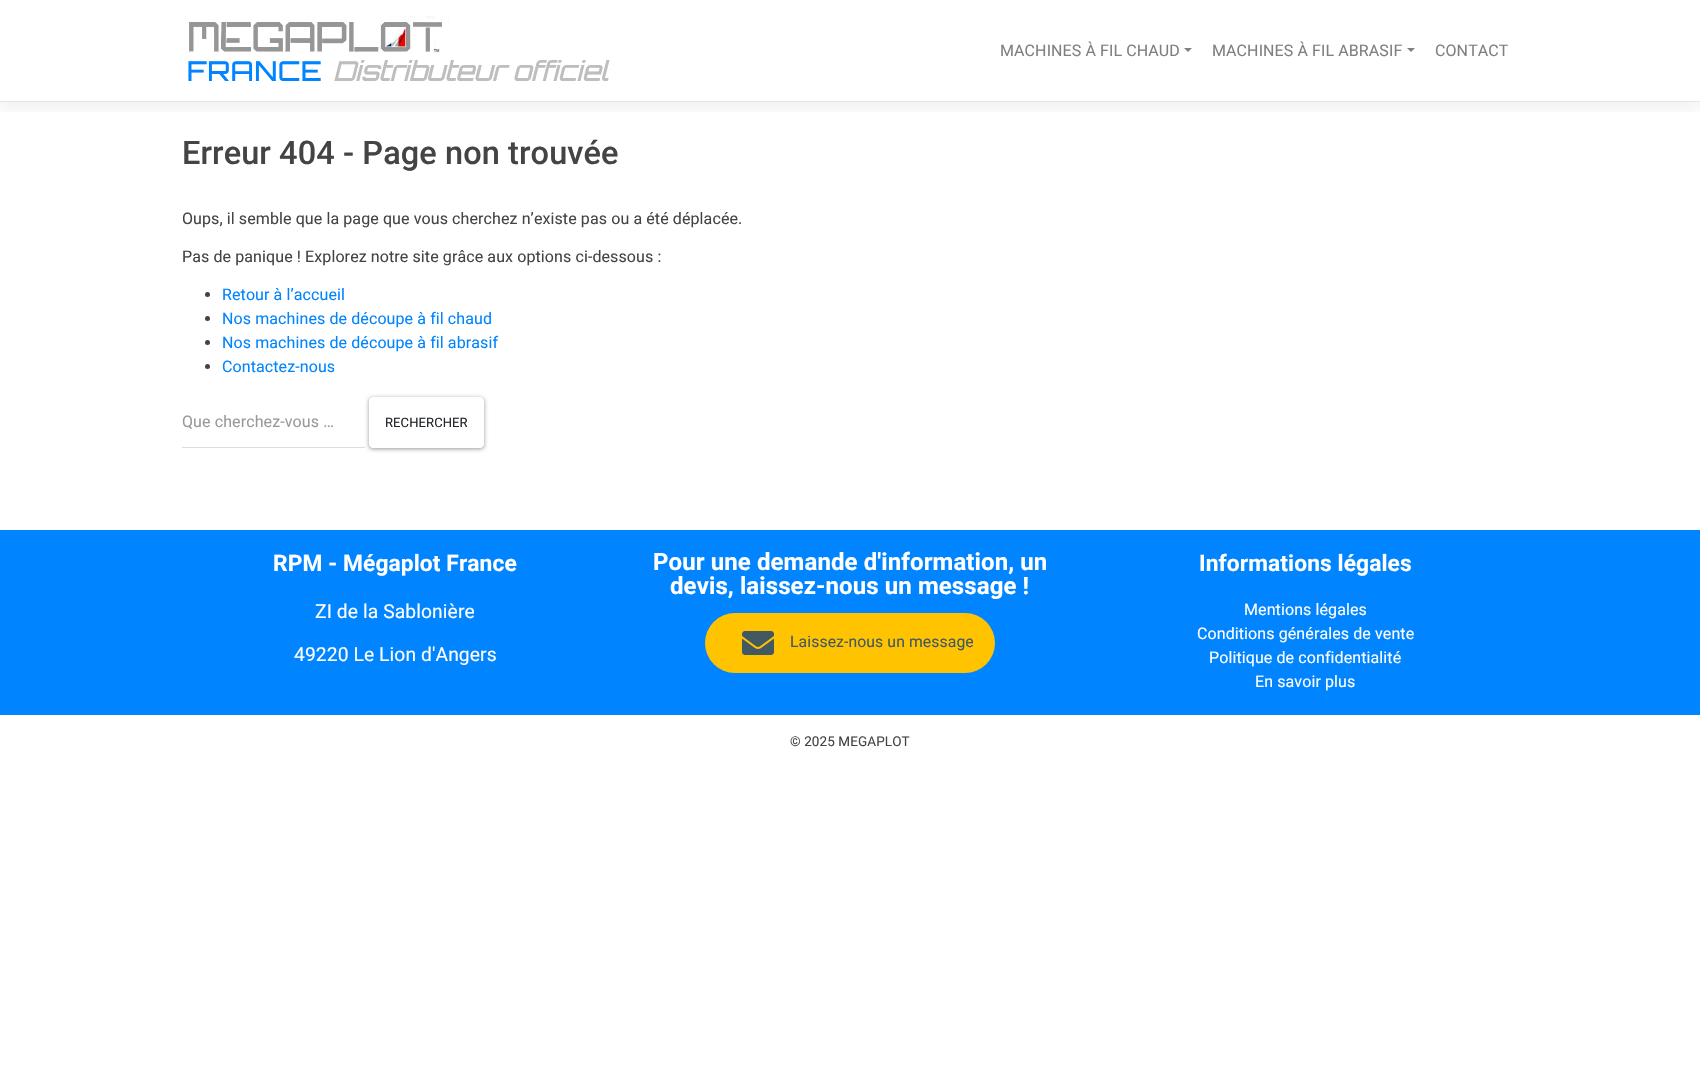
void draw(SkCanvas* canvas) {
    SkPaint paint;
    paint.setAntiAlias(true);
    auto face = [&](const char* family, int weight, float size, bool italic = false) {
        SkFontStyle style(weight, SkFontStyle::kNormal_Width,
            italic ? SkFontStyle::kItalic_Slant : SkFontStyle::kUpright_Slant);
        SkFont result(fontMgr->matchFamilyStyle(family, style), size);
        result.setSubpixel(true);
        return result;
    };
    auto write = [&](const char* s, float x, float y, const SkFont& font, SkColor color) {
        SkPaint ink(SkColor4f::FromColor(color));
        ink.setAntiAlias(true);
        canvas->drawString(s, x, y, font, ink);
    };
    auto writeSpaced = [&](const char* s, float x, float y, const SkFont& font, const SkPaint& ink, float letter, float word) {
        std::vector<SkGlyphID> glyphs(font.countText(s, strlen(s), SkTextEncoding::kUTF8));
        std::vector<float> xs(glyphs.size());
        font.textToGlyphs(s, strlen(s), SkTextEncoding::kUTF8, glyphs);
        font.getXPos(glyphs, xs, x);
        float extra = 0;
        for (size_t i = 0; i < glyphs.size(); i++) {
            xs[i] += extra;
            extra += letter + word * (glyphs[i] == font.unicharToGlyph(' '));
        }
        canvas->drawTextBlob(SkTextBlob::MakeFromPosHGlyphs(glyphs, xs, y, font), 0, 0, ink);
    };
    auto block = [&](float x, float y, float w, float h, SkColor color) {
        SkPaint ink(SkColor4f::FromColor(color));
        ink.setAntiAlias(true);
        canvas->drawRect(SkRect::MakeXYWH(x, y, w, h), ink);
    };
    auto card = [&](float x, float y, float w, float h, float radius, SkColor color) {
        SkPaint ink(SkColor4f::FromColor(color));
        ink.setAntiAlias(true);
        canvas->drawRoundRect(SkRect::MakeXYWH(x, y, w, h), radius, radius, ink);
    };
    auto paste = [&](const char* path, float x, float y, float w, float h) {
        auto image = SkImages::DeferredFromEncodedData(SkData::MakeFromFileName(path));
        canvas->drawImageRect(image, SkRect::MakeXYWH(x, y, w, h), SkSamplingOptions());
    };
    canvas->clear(SK_ColorWHITE);
    canvas->save();
    canvas->clipRect(SkRect::MakeXYWH(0, 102, 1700, 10));
    paint.setColor(SkColorSetARGB(13, 0, 0, 0));
    paint.setMaskFilter(SkMaskFilter::MakeBlur(kNormal_SkBlurStyle, 8));
    canvas->drawRect(SkRect::MakeXYWH(0, 8, 1700, 102), paint);
    paint.setMaskFilter(nullptr);
    canvas->restore();
    block(0, 101, 1700, 1, SkColorSetRGB(230, 230, 230));
    auto kFont1 = face("Roboto", 400, 16);
    paint.setColor(SkColorSetRGB(128, 128, 128));
    writeSpaced("MACHINES À FIL CHAUD", 1000, 56, kFont1, paint, 0.1f, 0);
    canvas->drawPath(SkPathBuilder().moveTo(1184, 48).lineTo(1192, 48).lineTo(1188, 52).close().detach(), paint);
    writeSpaced("MACHINES À FIL ABRASIF", 1212, 56, kFont1, paint, 0.1f, 0);
    canvas->drawPath(SkPathBuilder().moveTo(1407, 48).lineTo(1415, 48).lineTo(1411, 52).close().detach(), paint);
    writeSpaced("CONTACT", 1435, 56, kFont1, paint, 0.1f, 0);
    paste("pic1.png", 189, 16, 260, 37);
    auto kFont2 = face("Orbitron", 700, 26.4f);
    paint.setColor(SkColorSetRGB(0, 132, 255));
    writeSpaced("FRANCE", 187, 81, kFont2, paint, 1.5f, 0);
    auto kFont3 = face("Orbitron", 700, 26.4f, true);
    write("Distributeur officiel", 333, 81, kFont3, SkColorSetRGB(190, 190, 190));
    auto kFont4 = face("Roboto", 500, 32.5f);
    paint.setColor(SkColorSetRGB(68, 68, 68));
    writeSpaced("Erreur 404 - Page non trouvée", 182, 164, kFont4, paint, 0.1f, 0);
    writeSpaced("Oups, il semble que la page que vous cherchez n’existe pas ou a été déplacée.", 182, 224, kFont1, paint, 0.1f, 0);
    writeSpaced("Pas de panique ! Explorez notre site grâce aux options ci-dessous :", 182, 262, kFont1, paint, 0.1f, 0);
    canvas->drawCircle(207.5f, 294.5f, 2.5f, paint);
    paint.setColor(SkColorSetRGB(0, 132, 255));
    writeSpaced("Retour à l’accueil", 222, 300, kFont1, paint, 0.1f, 0);
    paint.setColor(SkColorSetRGB(68, 68, 68));
    canvas->drawCircle(207.5f, 318.5f, 2.5f, paint);
    paint.setColor(SkColorSetRGB(0, 132, 255));
    writeSpaced("Nos machines de découpe à fil chaud", 222, 324, kFont1, paint, 0.1f, 0);
    paint.setColor(SkColorSetRGB(68, 68, 68));
    canvas->drawCircle(207.5f, 342.5f, 2.5f, paint);
    paint.setColor(SkColorSetRGB(0, 132, 255));
    writeSpaced("Nos machines de découpe à fil abrasif", 222, 348, kFont1, paint, 0.1f, 0);
    paint.setColor(SkColorSetRGB(68, 68, 68));
    canvas->drawCircle(207.5f, 366.5f, 2.5f, paint);
    paint.setColor(SkColorSetRGB(0, 132, 255));
    writeSpaced("Contactez-nous", 222, 372, kFont1, paint, 0.1f, 0);
    block(182, 447, 183, 1, SkColorSetRGB(221, 221, 221));
    paint.setColor(SkColorSetRGB(153, 153, 153));
    writeSpaced("Que cherchez-vous …", 182, 427, kFont1, paint, 0.1f, 0);
    canvas->save();
    canvas->clipPath(SkPathBuilder(SkPathFillType::kEvenOdd).moveTo(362, 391).lineTo(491, 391).lineTo(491, 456).lineTo(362, 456).close().moveTo(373, 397).lineTo(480, 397).cubicTo(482, 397, 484, 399, 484, 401).lineTo(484, 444).cubicTo(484, 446, 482, 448, 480, 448).lineTo(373, 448).cubicTo(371, 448, 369, 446, 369, 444).lineTo(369, 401).cubicTo(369, 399, 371, 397, 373, 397).close().detach(), true);
    paint.setColor(SkColorSetARGB(102, 0, 0, 0));
    paint.setMaskFilter(SkMaskFilter::MakeBlur(kNormal_SkBlurStyle, 2));
    canvas->drawRoundRect(SkRect::MakeXYWH(369, 398, 115, 51), 4, 4, paint);
    paint.setMaskFilter(nullptr);
    canvas->restore();
    auto kFont5 = face("Roboto", 400, 13);
    paint.setColor(SkColorSetRGB(33, 37, 41));
    writeSpaced("RECHERCHER", 385, 427, kFont5, paint, 0.1f, 0);
    block(0, 530, 1700, 185, SkColorSetRGB(0, 132, 255));
    auto kFont6 = face("Roboto", 700, 22.75f);
    paint.setColor(SK_ColorWHITE);
    writeSpaced("RPM - Mégaplot France", 273, 571, kFont6, paint, 0.1f, 0);
    auto kFont7 = face("Roboto", 400, 19.25f);
    writeSpaced("ZI de la Sablonière", 315, 618, kFont7, paint, 0.1f, 0);
    writeSpaced("49220 Le Lion d'Angers", 294, 661, kFont7, paint, 0.1f, 0);
    auto kFont8 = face("Roboto", 700, 24);
    writeSpaced("Pour une demande d'information, un", 653, 570, kFont8, paint, 0.1f, 0);
    writeSpaced("devis, laissez-nous un message !", 670, 594, kFont8, paint, 0.1f, 0);
    card(705, 613, 290, 60, 30, SkColorSetRGB(255, 195, 0));
    paste("pic2.png", 742, 631, 32, 24);
    auto kFont9 = face("Roboto", 400, 15.75f);
    paint.setColor(SkColorSetRGB(66, 89, 100));
    writeSpaced("Laissez-nous un message", 790, 647, kFont9, paint, 0.1f, 0);
    paint.setColor(SK_ColorWHITE);
    writeSpaced("Informations légales", 1199, 571, kFont6, paint, 0.1f, 0);
    writeSpaced("Mentions légales", 1244, 615, kFont1, paint, 0.1f, 0);
    writeSpaced("Conditions générales de vente", 1197, 639, kFont1, paint, 0.1f, 0);
    writeSpaced("Politique de confidentialité", 1209, 663, kFont1, paint, 0.1f, 0);
    writeSpaced("En savoir plus", 1255, 687, kFont1, paint, 0.1f, 0);
    auto kFont10 = face("Roboto", 400, 13.5f);
    paint.setColor(SkColorSetRGB(68, 68, 68));
    writeSpaced("© 2025 MEGAPLOT", 790, 746, kFont10, paint, 0.1f, 0);
}
